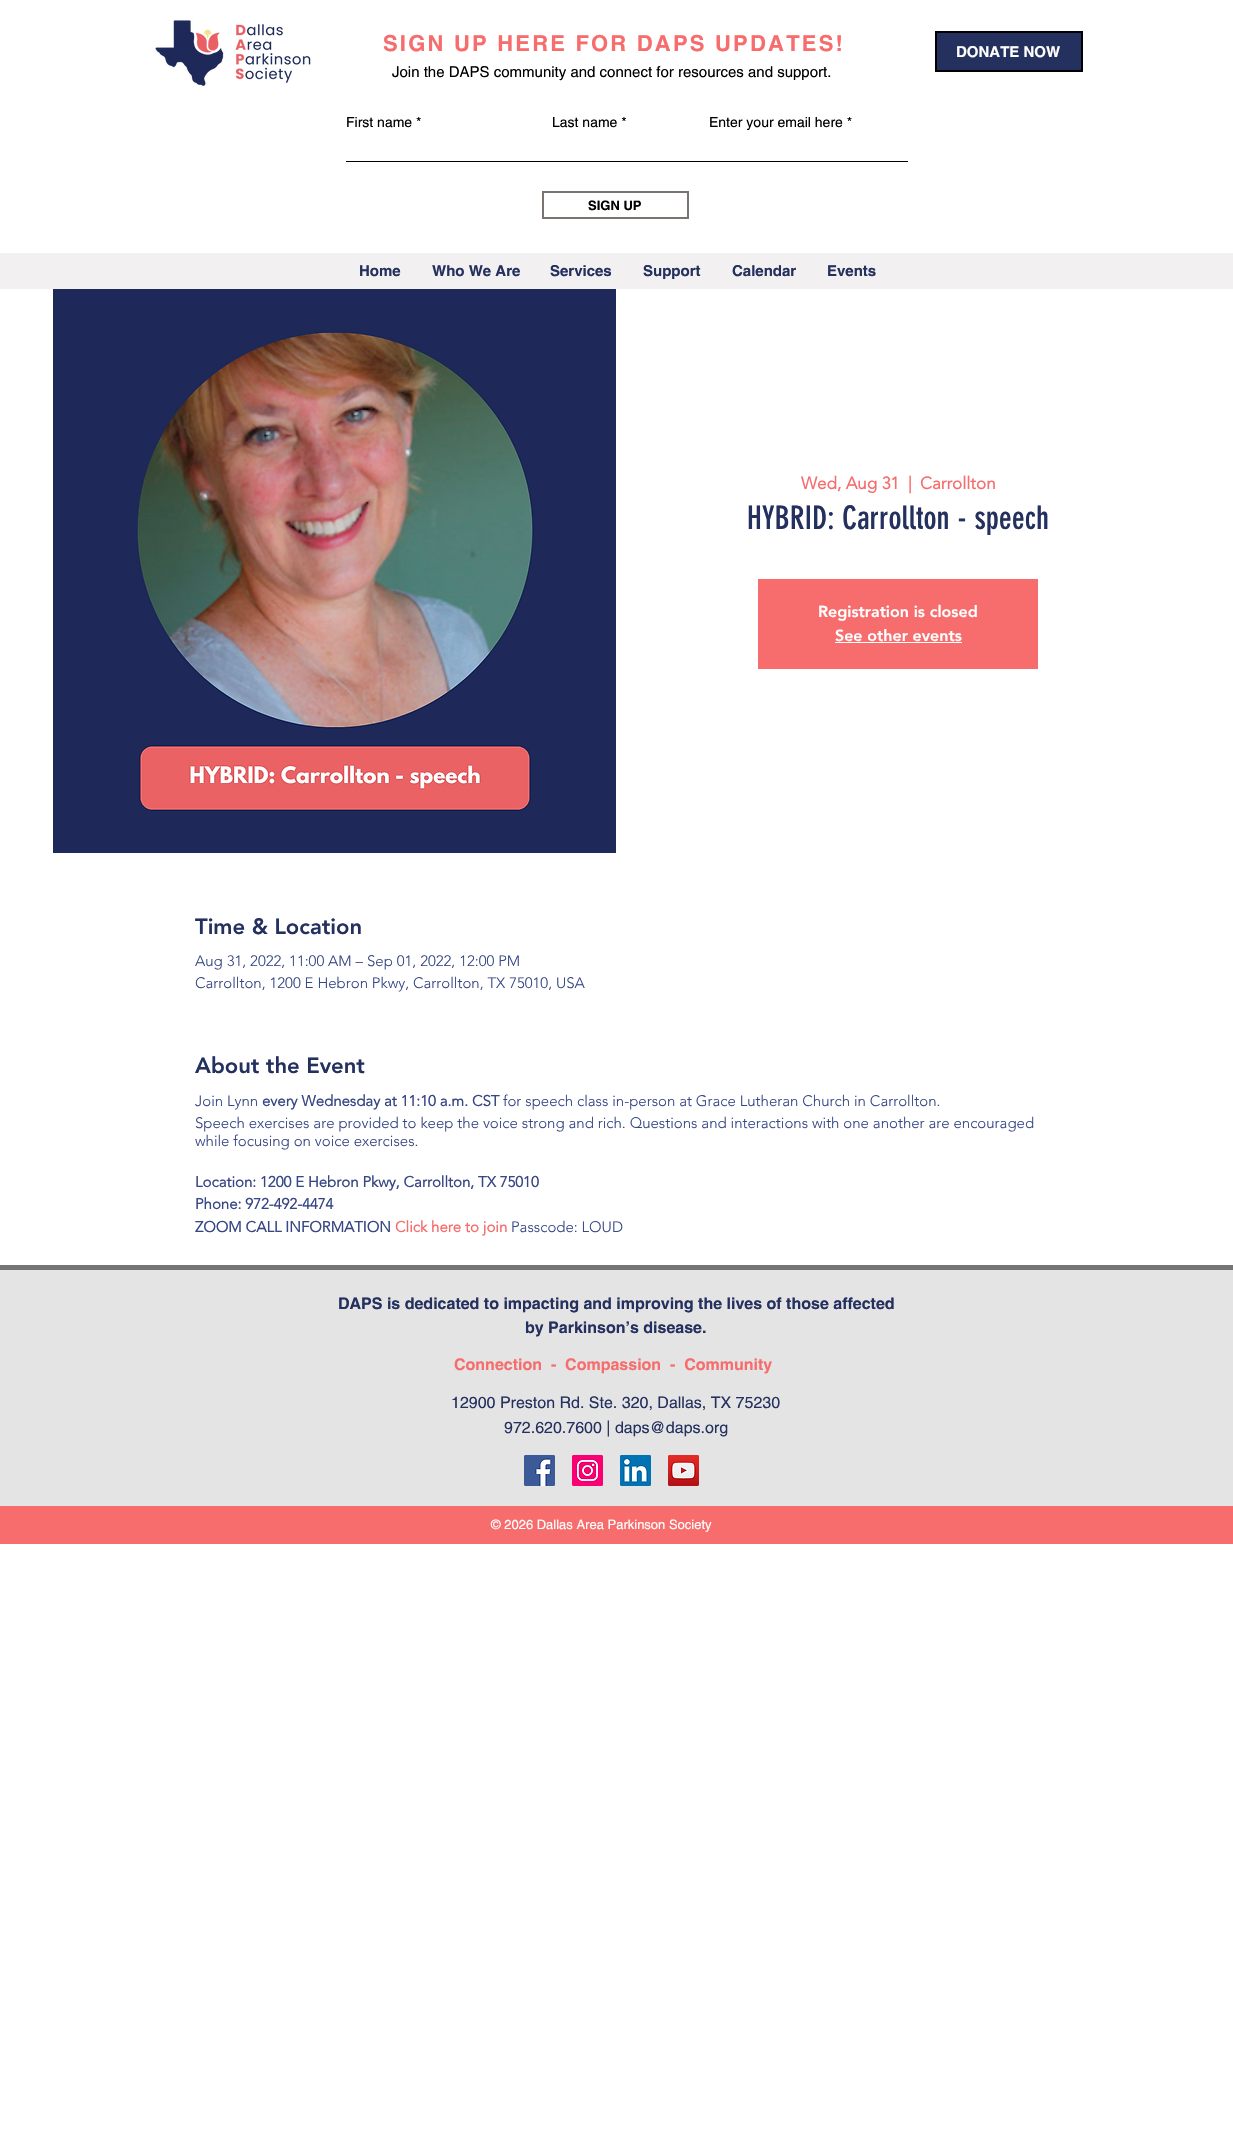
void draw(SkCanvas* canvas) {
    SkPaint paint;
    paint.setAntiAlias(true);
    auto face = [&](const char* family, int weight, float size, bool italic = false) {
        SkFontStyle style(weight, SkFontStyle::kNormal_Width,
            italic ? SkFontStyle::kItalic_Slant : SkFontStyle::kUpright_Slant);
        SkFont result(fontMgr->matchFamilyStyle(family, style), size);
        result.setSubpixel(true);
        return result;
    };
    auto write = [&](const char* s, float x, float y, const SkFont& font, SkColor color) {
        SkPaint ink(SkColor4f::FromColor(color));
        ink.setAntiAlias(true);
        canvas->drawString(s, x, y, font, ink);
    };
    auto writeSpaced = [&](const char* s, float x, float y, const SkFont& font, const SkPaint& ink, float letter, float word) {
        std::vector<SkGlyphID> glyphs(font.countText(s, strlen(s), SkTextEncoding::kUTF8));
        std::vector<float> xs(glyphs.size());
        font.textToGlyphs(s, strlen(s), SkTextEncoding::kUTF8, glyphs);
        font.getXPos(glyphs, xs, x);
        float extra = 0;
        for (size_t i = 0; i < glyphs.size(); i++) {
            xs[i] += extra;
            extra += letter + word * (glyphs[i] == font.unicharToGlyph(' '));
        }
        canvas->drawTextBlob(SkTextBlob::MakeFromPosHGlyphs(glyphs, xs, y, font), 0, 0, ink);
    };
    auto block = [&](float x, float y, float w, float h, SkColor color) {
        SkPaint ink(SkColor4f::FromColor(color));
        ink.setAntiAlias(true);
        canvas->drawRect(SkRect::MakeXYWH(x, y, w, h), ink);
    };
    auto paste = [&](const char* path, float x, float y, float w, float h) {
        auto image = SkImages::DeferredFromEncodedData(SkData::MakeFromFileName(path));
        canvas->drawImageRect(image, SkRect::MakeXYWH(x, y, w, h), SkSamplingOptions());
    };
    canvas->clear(SK_ColorWHITE);
    paste("pic1.png", 155, 20, 156, 66);
    auto kFont1 = face("helvetica", 700, 22);
    paint.setColor(SkColorSetRGB(247, 108, 108));
    writeSpaced("SIGN UP HERE FOR DAPS UPDATES!", 383, 51, kFont1, paint, 2.2f, 0);
    paint.setColor(SkColorSetRGB(36, 48, 94));
    canvas->drawRect(SkRect::MakeXYWH(936, 32, 146, 39), paint);
    paint.setStyle(SkPaint::kStroke_Style);
    paint.setStrokeWidth(2);
    paint.setColor(SK_ColorBLACK);
    canvas->drawRect(SkRect::MakeXYWH(936, 32, 146, 39), paint);
    auto kFont2 = face("helvetica", 700, 15);
    write("DONATE NOW", 956, 57, kFont2, SK_ColorWHITE);
    auto kFont3 = face("helvetica", 400, 15);
    write("Join the DAPS community and connect for resources and support.", 392, 77, kFont3, SK_ColorBLACK);
    auto kFont4 = face("helvetica", 400, 14);
    write("First name *", 346, 127, kFont4, SK_ColorBLACK);
    block(346, 161, 562, 1, SK_ColorBLACK);
    write("Last name *", 552, 127, kFont4, SK_ColorBLACK);
    write("Enter your email here *", 709, 127, kFont4, SK_ColorBLACK);
    paint.setColor(SkColorSetRGB(123, 115, 111));
    canvas->drawRect(SkRect::MakeXYWH(543, 192, 145, 26), paint);
    auto kFont5 = face("helvetica", 700, 13);
    write("SIGN UP", 588, 210, kFont5, SK_ColorBLACK);
    block(0, 253, 1233, 36, SkColorSetRGB(242, 240, 240));
    write("Home", 359, 276, kFont2, SkColorSetRGB(36, 48, 94));
    write("Who We Are", 432, 276, kFont2, SkColorSetRGB(36, 48, 94));
    write("Services", 550, 276, kFont2, SkColorSetRGB(36, 48, 94));
    write("Support", 643, 276, kFont2, SkColorSetRGB(36, 48, 94));
    write("Calendar", 732, 276, kFont2, SkColorSetRGB(36, 48, 94));
    write("Events", 827, 276, kFont2, SkColorSetRGB(36, 48, 94));
    paste("pic2.png", 53, 289, 563, 564);
    auto kFont6 = face("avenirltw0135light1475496", 700, 17);
    write("Wed, Aug 31", 801, 489, kFont6, SkColorSetRGB(247, 108, 108));
    write("|", 908, 489, kFont6, SkColorSetRGB(247, 108, 108));
    write("Carrollton", 920, 489, kFont6, SkColorSetRGB(247, 108, 108));
    auto kFont7 = face("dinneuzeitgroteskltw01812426", 400, 32);
    write("HYBRID: Carrollton - speech", 747, 529, kFont7, SkColorSetRGB(36, 48, 94));
    block(758, 579, 280, 90, SkColorSetRGB(247, 108, 108));
    auto kFont8 = face("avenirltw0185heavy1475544", 900, 16);
    write("Registration is closed", 818, 617, kFont8, SK_ColorWHITE);
    write("See other events", 835, 641, kFont8, SK_ColorWHITE);
    block(835, 642, 127, 1, SK_ColorWHITE);
    auto kFont9 = face("avenirltw0185heavy1475544", 900, 22);
    write("Time & Location", 195, 934, kFont9, SkColorSetRGB(36, 48, 94));
    auto kFont10 = face("avenirltw0135light1475496", 300, 15);
    write("Aug 31, 2022, 11:00 AM – Sep 01, 2022, 12:00 PM", 195, 966, kFont10, SkColorSetRGB(55, 71, 133));
    write("Carrollton, 1200 E Hebron Pkwy, Carrollton, TX 75010, USA", 195, 988, kFont10, SkColorSetRGB(55, 71, 133));
    write("About the Event", 195, 1073, kFont9, SkColorSetRGB(36, 48, 94));
    write("Join Lynn", 195, 1106, kFont10, SkColorSetRGB(55, 71, 133));
    auto kFont11 = face("avenirltw0135light1475496", 700, 15);
    write("every Wednesday at 11:10 a.m. CST", 262, 1106, kFont11, SkColorSetRGB(55, 71, 133));
    write("for speech class in-person at Grace Lutheran Church in Carrollton.", 503, 1106, kFont10, SkColorSetRGB(55, 71, 133));
    write("Speech exercises are provided to keep the voice strong and rich. Questions and interactions with one another are encouraged", 195, 1128, kFont10, SkColorSetRGB(55, 71, 133));
    write("while focusing on voice exercises.", 195, 1146, kFont10, SkColorSetRGB(55, 71, 133));
    write("Location: 1200 E Hebron Pkwy, Carrollton, TX 75010", 195, 1187, kFont11, SkColorSetRGB(55, 71, 133));
    write("Phone: 972-492-4474", 195, 1209, kFont11, SkColorSetRGB(55, 71, 133));
    write("ZOOM CALL INFORMATION", 195, 1232, kFont11, SkColorSetRGB(55, 71, 133));
    write("Click here to join", 395, 1232, kFont11, SkColorSetRGB(247, 108, 108));
    write("Passcode: LOUD", 511, 1232, kFont10, SkColorSetRGB(55, 71, 133));
    block(0, 1265, 1233, 5, SkColorSetRGB(117, 117, 117));
    block(0, 1270, 1233, 236, SkColorSetRGB(228, 228, 228));
    auto kFont12 = face("helvetica", 700, 16);
    write("DAPS is dedicated to impacting and improving the lives of those affected", 338, 1309, kFont12, SkColorSetRGB(36, 48, 94));
    write("by Parkinson’s disease.", 525, 1333, kFont12, SkColorSetRGB(36, 48, 94));
    write("Connection  -  Compassion  -  Community", 454, 1370, kFont12, SkColorSetRGB(247, 108, 108));
    auto kFont13 = face("helvetica", 400, 16);
    write("12900 Preston Rd. Ste. 320, Dallas, TX 75230", 451, 1408, kFont13, SkColorSetRGB(36, 48, 94));
    write("972.620.7600 | daps@daps.org", 504, 1433, kFont13, SkColorSetRGB(36, 48, 94));
    paste("pic3.png", 524, 1455, 31, 31);
    paste("pic4.png", 572, 1455, 31, 31);
    paste("pic5.png", 620, 1455, 31, 31);
    paste("pic6.png", 668, 1455, 31, 31);
    block(0, 1506, 1233, 38, SkColorSetRGB(247, 108, 108));
    auto kFont14 = face("helvetica", 400, 13);
    write("© 2026 Dallas Area Parkinson Society", 491, 1529, kFont14, SK_ColorWHITE);
}
